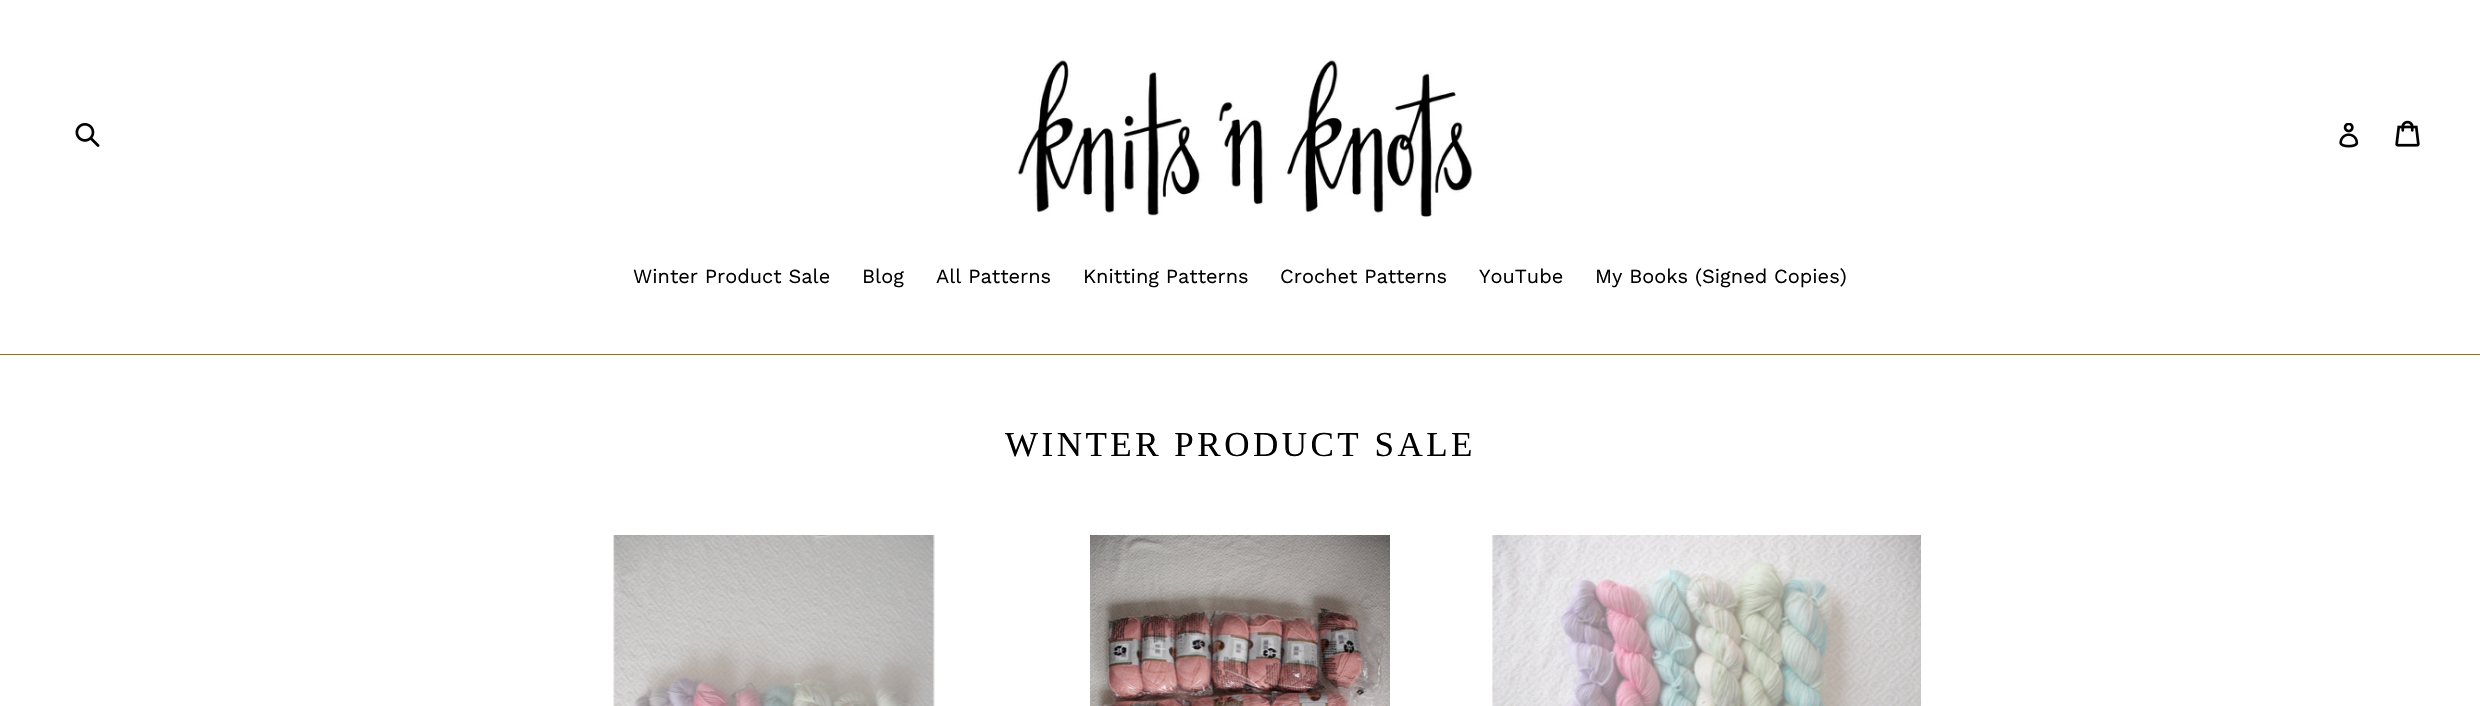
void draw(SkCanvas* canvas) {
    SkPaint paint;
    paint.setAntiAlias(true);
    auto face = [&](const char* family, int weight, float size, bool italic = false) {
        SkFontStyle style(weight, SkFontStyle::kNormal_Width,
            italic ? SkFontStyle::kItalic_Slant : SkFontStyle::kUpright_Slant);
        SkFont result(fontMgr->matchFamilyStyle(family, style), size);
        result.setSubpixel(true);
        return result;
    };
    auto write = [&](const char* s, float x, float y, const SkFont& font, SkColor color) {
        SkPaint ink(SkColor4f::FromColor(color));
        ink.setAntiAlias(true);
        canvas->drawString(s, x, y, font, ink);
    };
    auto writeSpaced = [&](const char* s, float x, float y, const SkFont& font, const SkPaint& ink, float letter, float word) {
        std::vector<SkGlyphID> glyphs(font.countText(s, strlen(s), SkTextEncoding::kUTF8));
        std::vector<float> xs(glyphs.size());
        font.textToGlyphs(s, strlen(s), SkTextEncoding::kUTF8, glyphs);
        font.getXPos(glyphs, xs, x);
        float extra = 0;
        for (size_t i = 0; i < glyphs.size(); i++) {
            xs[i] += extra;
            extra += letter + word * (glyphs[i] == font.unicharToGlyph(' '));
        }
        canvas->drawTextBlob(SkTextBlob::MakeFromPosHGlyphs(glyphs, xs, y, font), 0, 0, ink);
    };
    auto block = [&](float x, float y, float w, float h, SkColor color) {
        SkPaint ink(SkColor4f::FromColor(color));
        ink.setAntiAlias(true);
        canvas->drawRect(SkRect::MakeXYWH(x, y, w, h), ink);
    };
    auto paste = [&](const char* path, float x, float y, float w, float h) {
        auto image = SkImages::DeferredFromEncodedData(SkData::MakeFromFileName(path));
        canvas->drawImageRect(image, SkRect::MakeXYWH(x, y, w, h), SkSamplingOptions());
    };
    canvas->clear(SK_ColorWHITE);
    paste("pic1.png", 75, 123, 25, 24);
    paste("pic2.png", 1016, 60, 457, 159);
    paste("pic3.png", 2339, 123, 20, 25);
    paste("pic4.png", 2395, 120, 25, 27);
    block(0, 354, 2480, 1, SkColorSetRGB(139, 110, 60));
    auto kFont1 = face("Work Sans", 400, 20);
    write("Winter Product Sale", 633, 283, kFont1, SK_ColorBLACK);
    write("Blog", 862, 283, kFont1, SK_ColorBLACK);
    write("All Patterns", 936, 283, kFont1, SK_ColorBLACK);
    write("Knitting Patterns", 1083, 283, kFont1, SK_ColorBLACK);
    write("Crochet Patterns", 1280, 283, kFont1, SK_ColorBLACK);
    write("YouTube", 1479, 283, kFont1, SK_ColorBLACK);
    write("My Books (Signed Copies)", 1595, 283, kFont1, SK_ColorBLACK);
    auto kFont2 = face("Liberation Serif", 400, 35);
    paint.setColor(SK_ColorBLACK);
    writeSpaced("WINTER PRODUCT SALE", 1005, 456, kFont2, paint, 3.5f, 0);
    paste("pic5.png", 613, 535, 322, 171);
    paste("pic6.png", 1090, 535, 300, 171);
    paste("pic7.png", 1492, 535, 429, 171);
}
